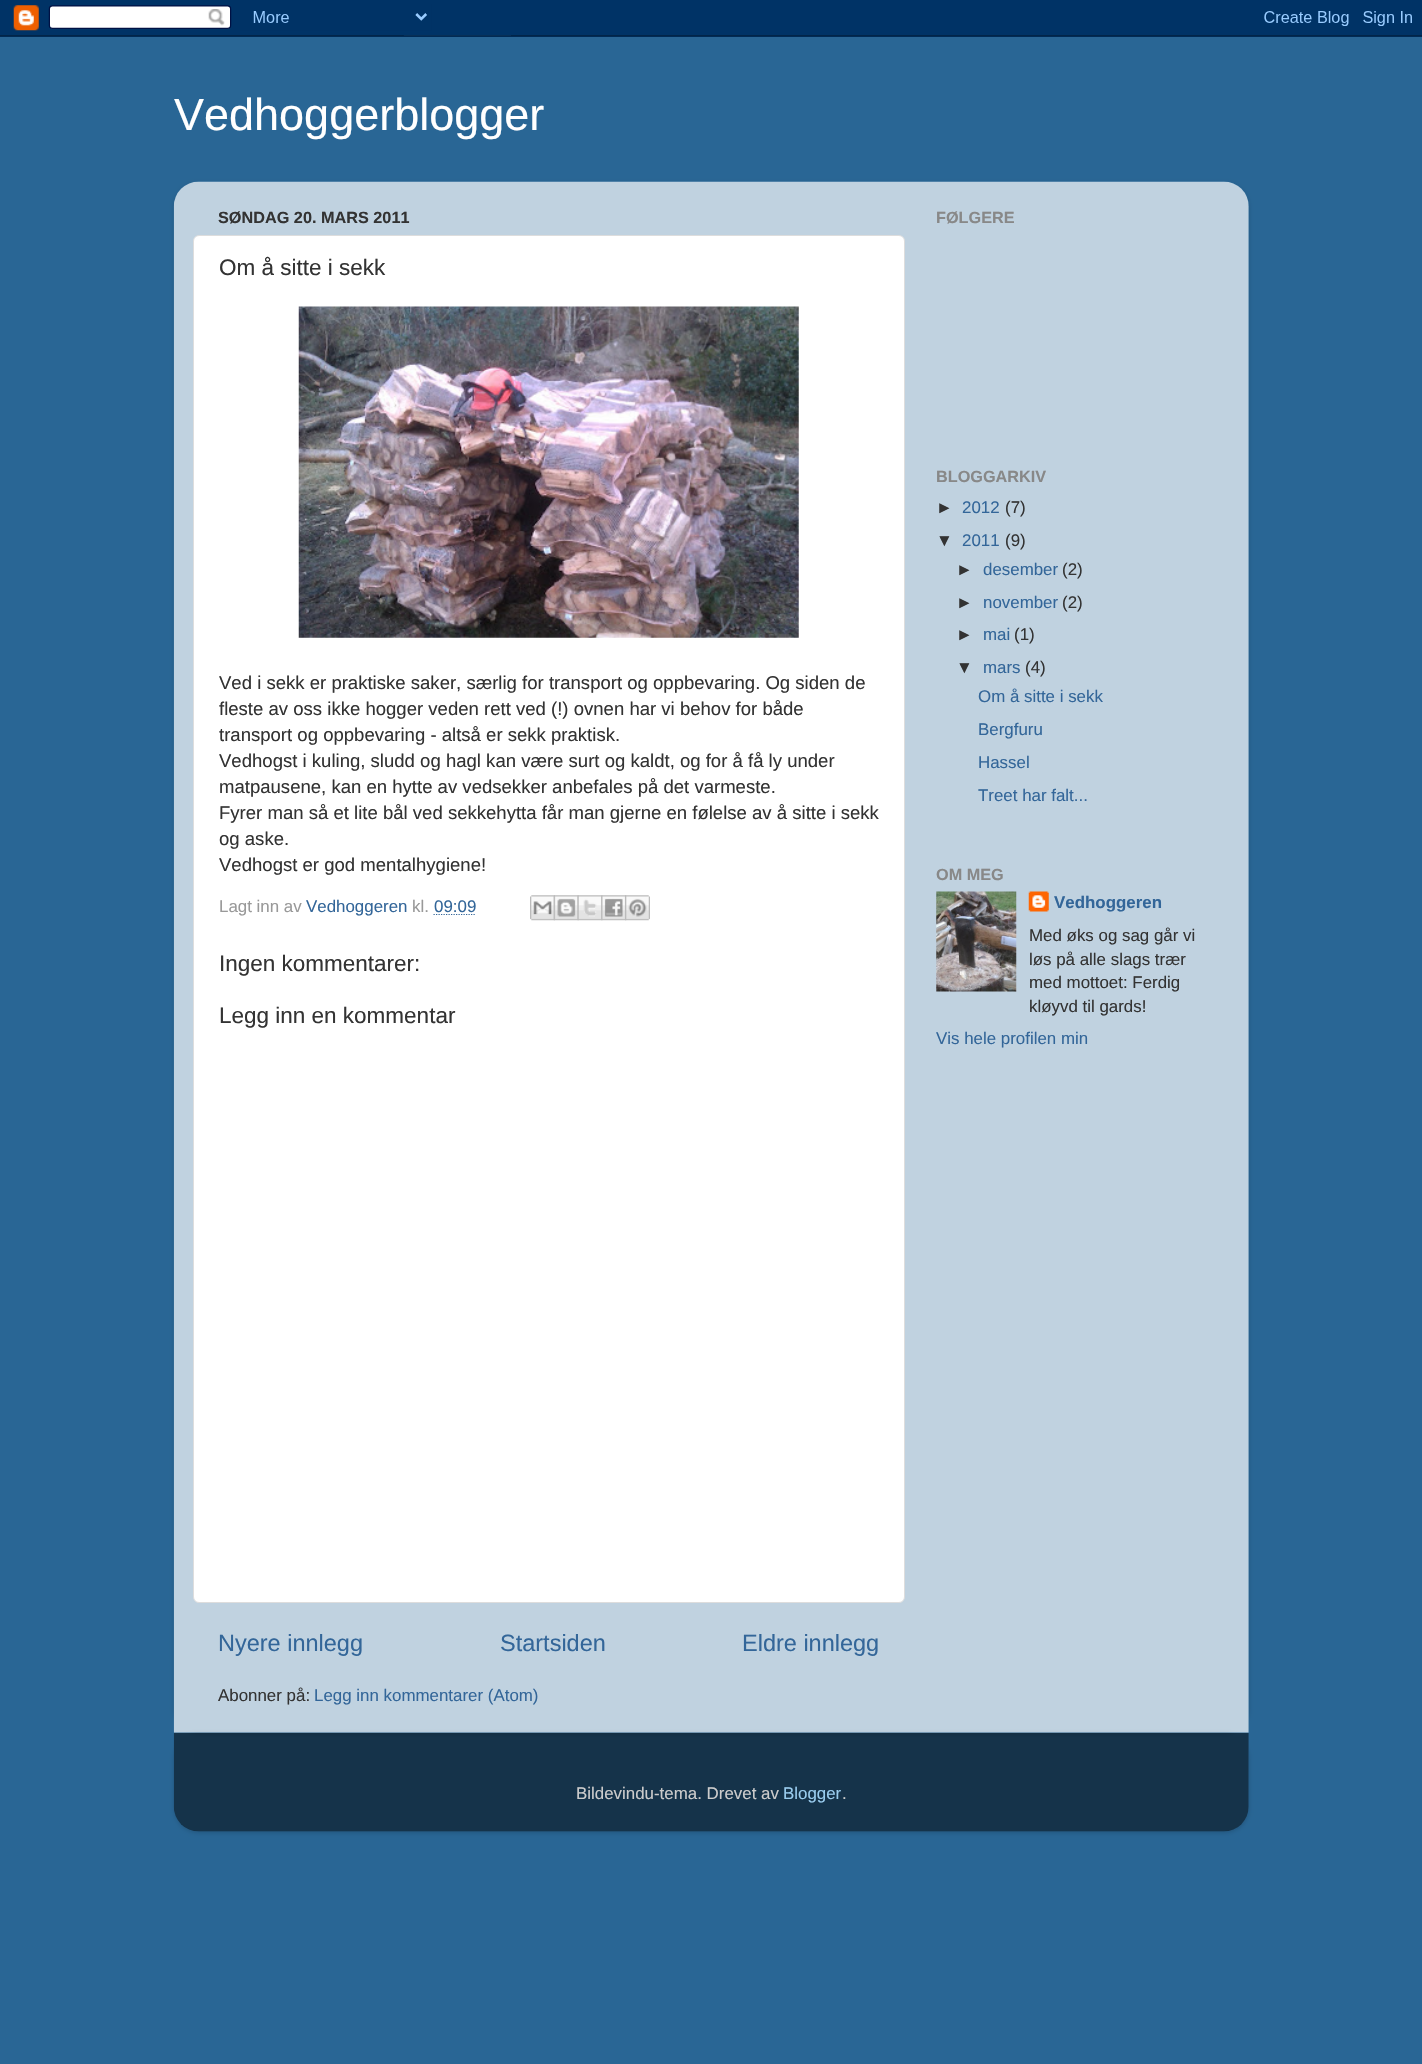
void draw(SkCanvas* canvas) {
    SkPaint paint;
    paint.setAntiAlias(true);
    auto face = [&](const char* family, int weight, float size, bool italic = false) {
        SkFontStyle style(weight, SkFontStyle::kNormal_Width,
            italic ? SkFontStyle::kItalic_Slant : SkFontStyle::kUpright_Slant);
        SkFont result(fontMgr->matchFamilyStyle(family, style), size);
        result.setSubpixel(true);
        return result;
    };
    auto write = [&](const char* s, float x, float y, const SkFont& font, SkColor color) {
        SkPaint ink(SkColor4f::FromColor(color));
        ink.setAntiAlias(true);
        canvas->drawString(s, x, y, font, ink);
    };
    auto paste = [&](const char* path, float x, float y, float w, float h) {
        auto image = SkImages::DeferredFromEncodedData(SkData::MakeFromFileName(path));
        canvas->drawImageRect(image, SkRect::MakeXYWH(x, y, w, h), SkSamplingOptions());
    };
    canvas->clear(SkColorSetRGB(41, 102, 149));
    paste("pic1.png", 0, 0, 1422, 37);
    auto kFont1 = face("Liberation Sans", 400, 45);
    write("Vedhoggerblogger", 174, 130, kFont1, SK_ColorWHITE);
    canvas->save();
    canvas->clipPath(SkPathBuilder(SkPathFillType::kEvenOdd).moveTo(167, 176).lineTo(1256, 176).lineTo(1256, 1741).lineTo(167, 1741).close().moveTo(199, 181).lineTo(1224, 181).cubicTo(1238, 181, 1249, 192, 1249, 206).lineTo(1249, 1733).lineTo(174, 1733).lineTo(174, 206).cubicTo(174, 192, 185, 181, 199, 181).close().detach(), true);
    paint.setColor(SkColorSetARGB(38, 0, 0, 0));
    paint.setMaskFilter(SkMaskFilter::MakeBlur(kNormal_SkBlurStyle, 2));
    canvas->drawRoundRect(SkRect::MakeXYWH(174, 183, 1075, 1551), 25, 25, paint);
    paint.setMaskFilter(nullptr);
    canvas->restore();
    paste("pic2.png", 173, 181, 1076, 1552);
    auto kFont2 = face("Liberation Sans", 700, 16.25f);
    write("SØNDAG 20. MARS 2011", 218, 223, kFont2, SkColorSetRGB(51, 51, 51));
    paint.setColor(SK_ColorWHITE);
    canvas->drawRoundRect(SkRect::MakeXYWH(193.5f, 235.5f, 711, 1367), 5.5f, 5.5f, paint);
    paint.setStyle(SkPaint::kStroke_Style);
    paint.setStrokeWidth(1);
    paint.setColor(SkColorSetRGB(221, 221, 221));
    canvas->drawRoundRect(SkRect::MakeXYWH(193.5f, 235.5f, 711, 1367), 5.5f, 5.5f, paint);
    auto kFont3 = face("Liberation Sans", 400, 22.5f);
    write("Om å sitte i sekk", 219, 275, kFont3, SkColorSetRGB(51, 51, 51));
    paste("pic3.png", 298, 306, 501, 332);
    auto kFont4 = face("Liberation Sans", 400, 18.55f);
    write("Ved i sekk er praktiske saker, særlig for transport og oppbevaring. Og siden de", 219, 689, kFont4, SkColorSetRGB(51, 51, 51));
    write("fleste av oss ikke hogger veden rett ved (!) ovnen har vi behov for både", 219, 715, kFont4, SkColorSetRGB(51, 51, 51));
    write("transport og oppbevaring - altså er sekk praktisk.", 219, 741, kFont4, SkColorSetRGB(51, 51, 51));
    write("Vedhogst i kuling, sludd og hagl kan være surt og kaldt, og for å få ly under", 219, 767, kFont4, SkColorSetRGB(51, 51, 51));
    write("matpausene, kan en hytte av vedsekker anbefales på det varmeste.", 219, 793, kFont4, SkColorSetRGB(51, 51, 51));
    write("Fyrer man så et lite bål ved sekkehytta får man gjerne en følelse av å sitte i sekk", 219, 819, kFont4, SkColorSetRGB(51, 51, 51));
    write("og aske.", 219, 845, kFont4, SkColorSetRGB(51, 51, 51));
    write("Vedhogst er god mentalhygiene!", 219, 871, kFont4, SkColorSetRGB(51, 51, 51));
    auto kFont5 = face("Liberation Sans", 400, 16.9f);
    write("Lagt inn av", 219, 912, kFont5, SkColorSetRGB(153, 153, 153));
    write("Vedhoggeren", 306, 912, kFont5, SkColorSetRGB(51, 102, 153));
    write("kl.", 412, 912, kFont5, SkColorSetRGB(153, 153, 153));
    write("09:09", 434, 912, kFont5, SkColorSetRGB(51, 102, 153));
    paint.setStrokeWidth(1.2f);
    paint.setColor(SkColorSetRGB(51, 102, 153));
    paint.setPathEffect(SkDashPathEffect::Make({{1.25f, 1.25f}}, 0));
    canvas->drawPath(SkPathBuilder().moveTo(433.5f, 914.5f).lineTo(476, 914.5f).detach(), paint);
    paint.setPathEffect(nullptr);
    paste("pic4.png", 530, 895, 25, 26);
    paste("pic5.png", 553, 895, 26, 26);
    paste("pic6.png", 577, 895, 26, 26);
    paste("pic7.png", 601, 895, 26, 26);
    paste("pic8.png", 625, 895, 25, 26);
    write("Ingen kommentarer:", 219, 971, kFont3, SkColorSetRGB(51, 51, 51));
    write("Legg inn en kommentar", 219, 1023, kFont3, SkColorSetRGB(51, 51, 51));
    auto kFont6 = face("Liberation Sans", 400, 23.5f);
    write("Nyere innlegg", 218, 1651, kFont6, SkColorSetRGB(51, 102, 153));
    write("Startsiden", 500, 1651, kFont6, SkColorSetRGB(51, 102, 153));
    write("Eldre innlegg", 742, 1651, kFont6, SkColorSetRGB(51, 102, 153));
    write("Abonner på:", 218, 1701, kFont5, SkColorSetRGB(51, 51, 51));
    write("Legg inn kommentarer (Atom)", 314, 1701, kFont5, SkColorSetRGB(51, 102, 153));
    write("FØLGERE", 936, 223, kFont2, SkColorSetRGB(136, 136, 136));
    write("BLOGGARKIV", 936, 482, kFont2, SkColorSetRGB(136, 136, 136));
    write("►", 936, 513, kFont5, SkColorSetRGB(51, 51, 51));
    write("2012", 962, 513, kFont5, SkColorSetRGB(51, 102, 153));
    write("(7)", 1005, 513, kFont5, SkColorSetRGB(51, 51, 51));
    write("▼", 936, 546, kFont5, SkColorSetRGB(51, 51, 51));
    write("2011", 962, 546, kFont5, SkColorSetRGB(51, 102, 153));
    write("(9)", 1005, 546, kFont5, SkColorSetRGB(51, 51, 51));
    write("►", 956, 575, kFont5, SkColorSetRGB(51, 51, 51));
    write("desember", 983, 575, kFont5, SkColorSetRGB(51, 102, 153));
    write("(2)", 1062, 575, kFont5, SkColorSetRGB(51, 51, 51));
    write("►", 956, 608, kFont5, SkColorSetRGB(51, 51, 51));
    write("november", 983, 608, kFont5, SkColorSetRGB(51, 102, 153));
    write("(2)", 1062, 608, kFont5, SkColorSetRGB(51, 51, 51));
    write("►", 956, 640, kFont5, SkColorSetRGB(51, 51, 51));
    write("mai", 983, 640, kFont5, SkColorSetRGB(51, 102, 153));
    write("(1)", 1014, 640, kFont5, SkColorSetRGB(51, 51, 51));
    write("▼", 956, 673, kFont5, SkColorSetRGB(51, 51, 51));
    write("mars", 983, 673, kFont5, SkColorSetRGB(51, 102, 153));
    write("(4)", 1025, 673, kFont5, SkColorSetRGB(51, 51, 51));
    write("Om å sitte i sekk", 978, 702, kFont5, SkColorSetRGB(51, 102, 153));
    write("Bergfuru", 978, 735, kFont5, SkColorSetRGB(51, 102, 153));
    write("Hassel", 978, 768, kFont5, SkColorSetRGB(51, 102, 153));
    write("Treet har falt...", 978, 801, kFont5, SkColorSetRGB(51, 102, 153));
    write("OM MEG", 936, 880, kFont2, SkColorSetRGB(136, 136, 136));
    paste("pic9.png", 936, 891, 81, 101);
    paste("pic10.png", 1028, 891, 21, 21);
    auto kFont7 = face("Liberation Sans", 700, 16.9f);
    write("Vedhoggeren", 1054, 908, kFont7, SkColorSetRGB(51, 102, 153));
    write("Med øks og sag går vi", 1029, 941, kFont5, SkColorSetRGB(51, 51, 51));
    write("løs på alle slags trær", 1029, 965, kFont5, SkColorSetRGB(51, 51, 51));
    write("med mottoet: Ferdig", 1029, 988, kFont5, SkColorSetRGB(51, 51, 51));
    write("kløyvd til gards!", 1029, 1012, kFont5, SkColorSetRGB(51, 51, 51));
    write("Vis hele profilen min", 936, 1044, kFont5, SkColorSetRGB(51, 102, 153));
    canvas->save();
    canvas->clipPath(SkPathBuilder(SkPathFillType::kEvenOdd).moveTo(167, 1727).lineTo(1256, 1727).lineTo(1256, 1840).lineTo(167, 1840).close().moveTo(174, 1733).lineTo(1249, 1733).lineTo(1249, 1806).cubicTo(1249, 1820, 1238, 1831, 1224, 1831).lineTo(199, 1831).cubicTo(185, 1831, 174, 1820, 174, 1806).close().detach(), true);
    paint.setStyle(SkPaint::kFill_Style);
    paint.setColor(SkColorSetARGB(38, 0, 0, 0));
    paint.setMaskFilter(SkMaskFilter::MakeBlur(kNormal_SkBlurStyle, 2));
    canvas->drawRoundRect(SkRect::MakeXYWH(174, 1734, 1075, 99), 25, 25, paint);
    paint.setMaskFilter(nullptr);
    canvas->restore();
    paste("pic11.png", 173, 1732, 1076, 100);
    write("Bildevindu-tema. Drevet av", 576, 1799, kFont5, SkColorSetRGB(204, 204, 204));
    write("Blogger", 783, 1799, kFont5, SkColorSetRGB(153, 204, 238));
    write(".", 842, 1799, kFont5, SkColorSetRGB(204, 204, 204));
}
